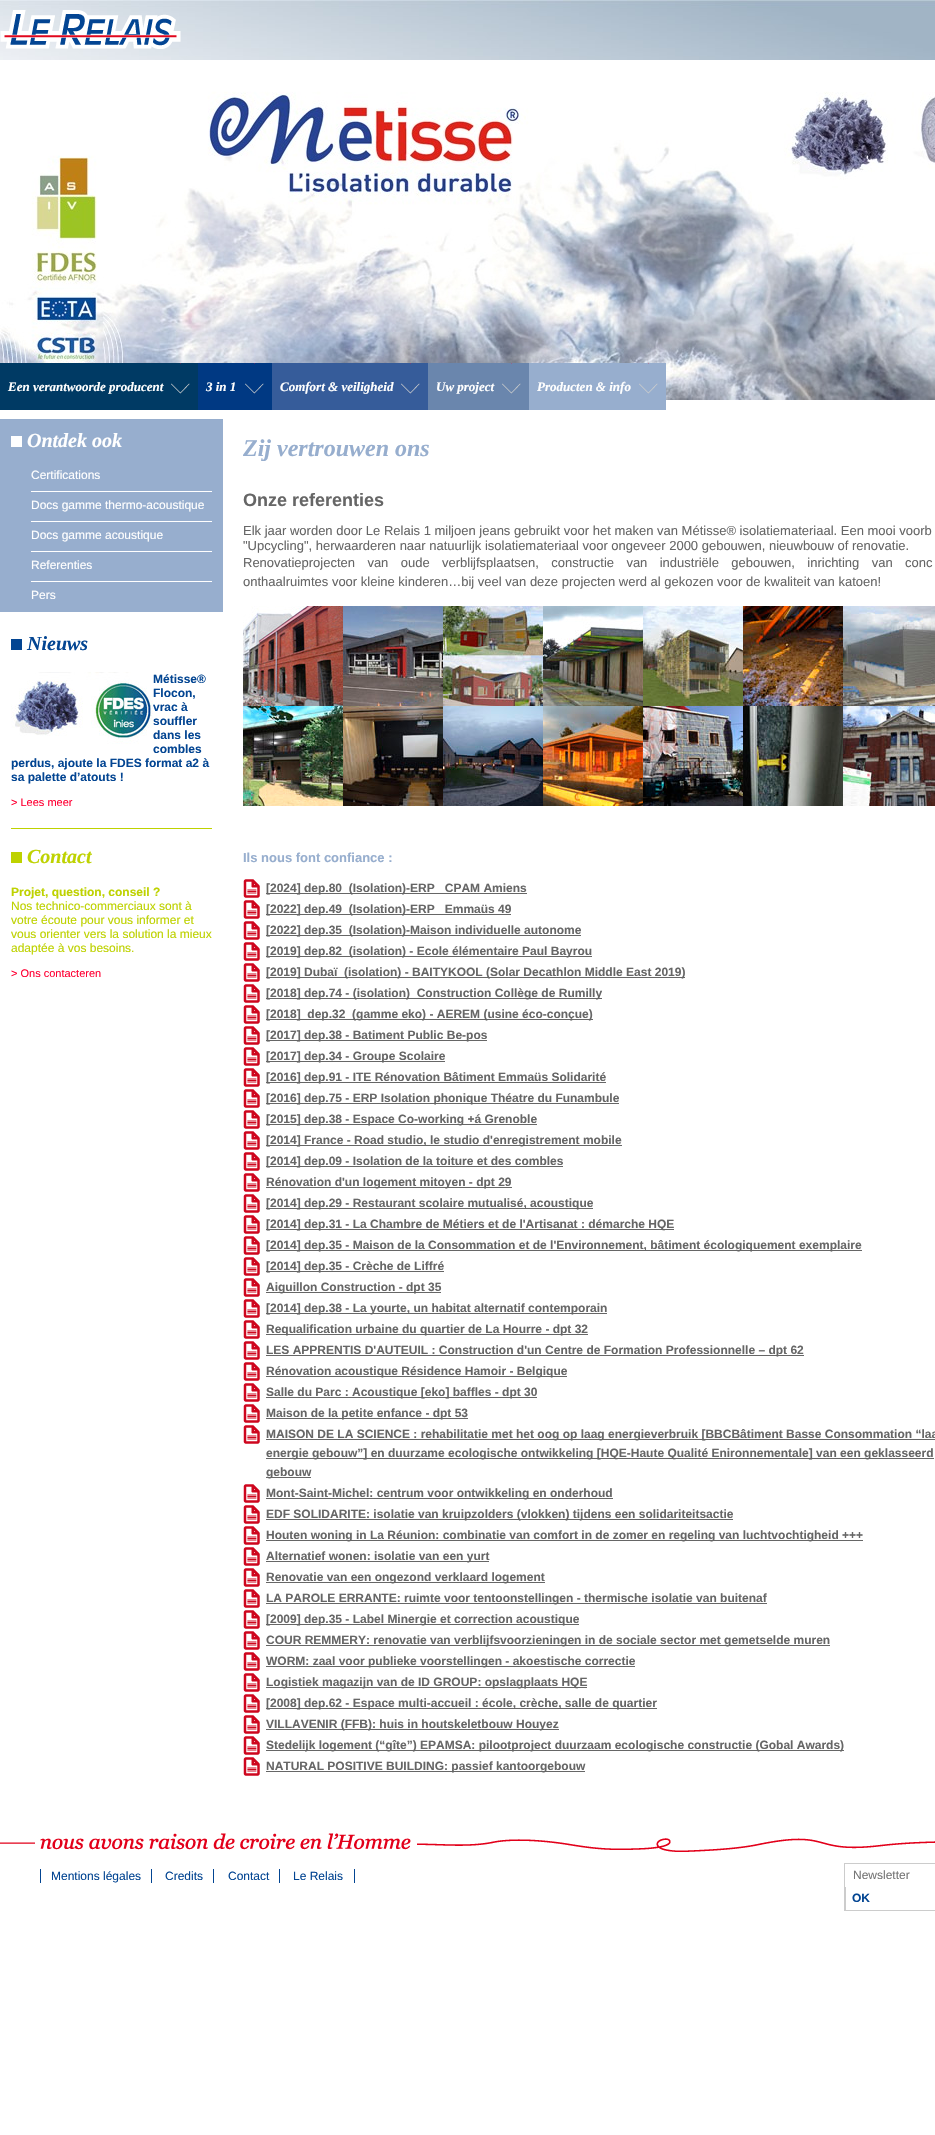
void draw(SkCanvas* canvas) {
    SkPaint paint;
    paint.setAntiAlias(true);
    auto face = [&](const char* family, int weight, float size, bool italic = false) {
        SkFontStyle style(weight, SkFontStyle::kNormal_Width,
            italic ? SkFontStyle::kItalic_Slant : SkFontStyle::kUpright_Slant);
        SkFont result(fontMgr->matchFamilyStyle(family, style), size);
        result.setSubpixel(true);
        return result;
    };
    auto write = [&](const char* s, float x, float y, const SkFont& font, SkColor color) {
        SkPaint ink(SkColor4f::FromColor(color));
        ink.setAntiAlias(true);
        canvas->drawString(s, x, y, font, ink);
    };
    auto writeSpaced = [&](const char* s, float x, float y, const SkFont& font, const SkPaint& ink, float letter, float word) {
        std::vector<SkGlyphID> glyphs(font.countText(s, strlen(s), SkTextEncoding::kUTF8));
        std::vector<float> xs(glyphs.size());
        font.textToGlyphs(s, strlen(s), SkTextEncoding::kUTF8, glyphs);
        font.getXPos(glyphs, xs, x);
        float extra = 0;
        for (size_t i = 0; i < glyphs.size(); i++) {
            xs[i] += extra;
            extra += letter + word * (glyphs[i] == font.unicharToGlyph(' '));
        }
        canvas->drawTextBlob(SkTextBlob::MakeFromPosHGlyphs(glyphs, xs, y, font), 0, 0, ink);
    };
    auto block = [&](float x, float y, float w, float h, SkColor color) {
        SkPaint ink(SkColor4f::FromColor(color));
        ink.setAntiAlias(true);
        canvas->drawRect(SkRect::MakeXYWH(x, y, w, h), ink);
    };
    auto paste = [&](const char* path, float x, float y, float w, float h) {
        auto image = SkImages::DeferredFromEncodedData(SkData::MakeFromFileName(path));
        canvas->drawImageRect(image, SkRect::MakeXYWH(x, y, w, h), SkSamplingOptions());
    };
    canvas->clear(SK_ColorWHITE);
    paste("pic1.png", 0, 0, 935, 60);
    paste("pic2.png", 0, 10, 181, 39);
    paste("pic3.png", 0, 60, 935, 340);
    block(0, 363, 198, 47, SkColorSetRGB(0, 58, 100));
    paste("pic4.png", 171, 363, 19, 31);
    auto kFont1 = face("Liberation Serif", 700, 13, true);
    write("Een verantwoorde producent", 8, 391, kFont1, SK_ColorWHITE);
    block(198, 363, 74, 47, SkColorSetRGB(0, 57, 131));
    paste("pic5.png", 245, 363, 19, 31);
    write("3 in 1", 206, 391, kFont1, SK_ColorWHITE);
    block(272, 363, 156, 47, SkColorSetRGB(54, 92, 154));
    paste("pic6.png", 401, 363, 19, 31);
    write("Comfort & veiligheid", 280, 391, kFont1, SK_ColorWHITE);
    block(428, 363, 101, 47, SkColorSetRGB(106, 134, 173));
    paste("pic7.png", 502, 363, 19, 31);
    write("Uw project", 436, 391, kFont1, SK_ColorWHITE);
    block(529, 363, 137, 47, SkColorSetRGB(151, 174, 206));
    paste("pic8.png", 639, 363, 19, 31);
    write("Producten & info", 537, 391, kFont1, SK_ColorWHITE);
    block(0, 419, 223, 193, SkColorSetRGB(151, 174, 206));
    block(11, 436, 11, 11, SK_ColorWHITE);
    auto kFont2 = face("Liberation Serif", 700, 20, true);
    write("Ontdek ook", 27, 447, kFont2, SK_ColorWHITE);
    block(31, 491, 181, 1, SK_ColorWHITE);
    auto kFont3 = face("Liberation Sans", 400, 12);
    write("Certifications", 31, 479, kFont3, SK_ColorWHITE);
    block(31, 521, 181, 1, SK_ColorWHITE);
    write("Docs gamme thermo-acoustique", 31, 509, kFont3, SK_ColorWHITE);
    block(31, 551, 181, 1, SK_ColorWHITE);
    write("Docs gamme acoustique", 31, 539, kFont3, SK_ColorWHITE);
    block(31, 581, 181, 1, SK_ColorWHITE);
    write("Referenties", 31, 569, kFont3, SK_ColorWHITE);
    write("Pers", 31, 599, kFont3, SK_ColorWHITE);
    block(11, 639, 11, 11, SkColorSetRGB(3, 69, 146));
    write("Nieuws", 27, 650, kFont2, SkColorSetRGB(3, 69, 146));
    paste("pic9.png", 11, 672, 142, 72);
    auto kFont4 = face("Liberation Sans", 700, 12);
    write("Métisse®", 153, 683, kFont4, SkColorSetRGB(3, 69, 146));
    write("Flocon,", 153, 697, kFont4, SkColorSetRGB(3, 69, 146));
    write("vrac à", 153, 711, kFont4, SkColorSetRGB(3, 69, 146));
    write("souffler", 153, 725, kFont4, SkColorSetRGB(3, 69, 146));
    write("dans les", 153, 739, kFont4, SkColorSetRGB(3, 69, 146));
    write("combles", 153, 753, kFont4, SkColorSetRGB(3, 69, 146));
    write("perdus, ajoute la FDES format a2 à", 11, 767, kFont4, SkColorSetRGB(3, 69, 146));
    write("sa palette d’atouts !", 11, 781, kFont4, SkColorSetRGB(3, 69, 146));
    auto kFont5 = face("Liberation Sans", 400, 11);
    write("> Lees meer", 11, 806, kFont5, SkColorSetRGB(255, 0, 51));
    block(11, 828, 201, 1, SkColorSetRGB(190, 210, 0));
    block(11, 852, 11, 11, SkColorSetRGB(190, 210, 0));
    write("Contact", 27, 863, kFont2, SkColorSetRGB(190, 210, 0));
    write("Projet, question, conseil ?", 11, 896, kFont4, SkColorSetRGB(190, 210, 0));
    write("Nos technico-commerciaux sont à", 11, 910, kFont3, SkColorSetRGB(190, 210, 0));
    write("votre écoute pour vous informer et", 11, 924, kFont3, SkColorSetRGB(190, 210, 0));
    write("vous orienter vers la solution la mieux", 11, 938, kFont3, SkColorSetRGB(190, 210, 0));
    write("adaptée à vos besoins.", 11, 952, kFont3, SkColorSetRGB(190, 210, 0));
    write("> Ons contacteren", 11, 977, kFont5, SkColorSetRGB(255, 0, 51));
    auto kFont6 = face("Liberation Serif", 700, 24, true);
    write("Zij vertrouwen ons", 243, 456, kFont6, SkColorSetRGB(151, 174, 206));
    auto kFont7 = face("Liberation Sans", 700, 18);
    write("Onze referenties", 243, 506, kFont7, SkColorSetRGB(102, 102, 102));
    auto kFont8 = face("Liberation Sans", 400, 13);
    write("Elk jaar worden door Le Relais 1 miljoen jeans gebruikt voor het maken van Métisse® isolatiemateriaal. Een mooi voorb", 243, 535, kFont8, SkColorSetRGB(102, 102, 102));
    write("\"Upcycling\", herwaarderen naar natuurlijk isolatiemateriaal voor ongeveer 2000 gebouwen, nieuwbouw of renovatie.", 243, 550, kFont8, SkColorSetRGB(102, 102, 102));
    paint.setColor(SkColorSetRGB(102, 102, 102));
    writeSpaced("Renovatieprojecten van oude verblijfsplaatsen, constructie van industriële gebouwen, inrichting van conc", 243, 567, kFont8, paint, 0, 8.75f);
    write("onthaalruimtes voor kleine kinderen…bij veel van deze projecten werd al gekozen voor de kwaliteit van katoen!", 243, 586, kFont8, SkColorSetRGB(102, 102, 102));
    paste("pic10.png", 243, 606, 100, 100);
    paste("pic11.png", 343, 606, 100, 100);
    paste("pic12.png", 443, 606, 100, 100);
    paste("pic13.png", 543, 606, 100, 100);
    paste("pic14.png", 643, 606, 100, 100);
    paste("pic15.png", 743, 606, 100, 100);
    paste("pic16.png", 843, 606, 92, 100);
    paste("pic17.png", 243, 706, 100, 100);
    paste("pic18.png", 343, 706, 100, 100);
    paste("pic19.png", 443, 706, 100, 100);
    paste("pic20.png", 543, 706, 100, 100);
    paste("pic21.png", 643, 706, 100, 100);
    paste("pic22.png", 743, 706, 100, 100);
    paste("pic23.png", 843, 706, 92, 100);
    auto kFont9 = face("Liberation Sans", 700, 13);
    write("Ils nous font confiance :", 243, 862, kFont9, SkColorSetRGB(151, 174, 206));
    paste("pic24.png", 243, 879, 17, 19);
    block(266, 893, 261, 1, SkColorSetRGB(102, 102, 102));
    write("[2024] dep.80_(Isolation)-ERP_ CPAM Amiens", 266, 892, kFont4, SkColorSetRGB(102, 102, 102));
    paste("pic24.png", 243, 900, 17, 19);
    block(266, 914, 245, 1, SkColorSetRGB(102, 102, 102));
    write("[2022] dep.49_(Isolation)-ERP_ Emmaüs 49", 266, 913, kFont4, SkColorSetRGB(102, 102, 102));
    paste("pic24.png", 243, 921, 17, 19);
    block(266, 935, 315, 1, SkColorSetRGB(102, 102, 102));
    write("[2022] dep.35_(Isolation)-Maison individuelle autonome", 266, 934, kFont4, SkColorSetRGB(102, 102, 102));
    paste("pic24.png", 243, 942, 17, 19);
    block(266, 956, 326, 1, SkColorSetRGB(102, 102, 102));
    write("[2019] dep.82_(isolation) - Ecole élémentaire Paul Bayrou", 266, 955, kFont4, SkColorSetRGB(102, 102, 102));
    paste("pic24.png", 243, 963, 17, 19);
    block(266, 977, 419, 1, SkColorSetRGB(102, 102, 102));
    write("[2019] Dubaï_(isolation) - BAITYKOOL (Solar Decathlon Middle East 2019)", 266, 976, kFont4, SkColorSetRGB(102, 102, 102));
    paste("pic24.png", 243, 984, 17, 19);
    block(266, 998, 336, 1, SkColorSetRGB(102, 102, 102));
    write("[2018] dep.74 - (isolation)_Construction Collège de Rumilly", 266, 997, kFont4, SkColorSetRGB(102, 102, 102));
    paste("pic24.png", 243, 1005, 17, 19);
    block(266, 1019, 327, 1, SkColorSetRGB(102, 102, 102));
    write("[2018]_dep.32_(gamme eko) - AEREM (usine éco-conçue)", 266, 1018, kFont4, SkColorSetRGB(102, 102, 102));
    paste("pic24.png", 243, 1026, 17, 19);
    block(266, 1040, 221, 1, SkColorSetRGB(102, 102, 102));
    write("[2017] dep.38 - Batiment Public Be-pos", 266, 1039, kFont4, SkColorSetRGB(102, 102, 102));
    paste("pic24.png", 243, 1047, 17, 19);
    block(266, 1061, 179, 1, SkColorSetRGB(102, 102, 102));
    write("[2017] dep.34 - Groupe Scolaire", 266, 1060, kFont4, SkColorSetRGB(102, 102, 102));
    paste("pic24.png", 243, 1068, 17, 19);
    block(266, 1082, 340, 1, SkColorSetRGB(102, 102, 102));
    write("[2016] dep.91 - ITE Rénovation Bâtiment Emmaüs Solidarité", 266, 1081, kFont4, SkColorSetRGB(102, 102, 102));
    paste("pic24.png", 243, 1089, 17, 19);
    block(266, 1103, 353, 1, SkColorSetRGB(102, 102, 102));
    write("[2016] dep.75 - ERP Isolation phonique Théatre du Funambule", 266, 1102, kFont4, SkColorSetRGB(102, 102, 102));
    paste("pic24.png", 243, 1110, 17, 19);
    block(266, 1124, 271, 1, SkColorSetRGB(102, 102, 102));
    write("[2015] dep.38 - Espace Co-working +á Grenoble", 266, 1123, kFont4, SkColorSetRGB(102, 102, 102));
    paste("pic24.png", 243, 1131, 17, 19);
    block(266, 1145, 356, 1, SkColorSetRGB(102, 102, 102));
    write("[2014] France - Road studio, le studio d'enregistrement mobile", 266, 1144, kFont4, SkColorSetRGB(102, 102, 102));
    paste("pic24.png", 243, 1152, 17, 19);
    block(266, 1166, 297, 1, SkColorSetRGB(102, 102, 102));
    write("[2014] dep.09 - Isolation de la toiture et des combles", 266, 1165, kFont4, SkColorSetRGB(102, 102, 102));
    paste("pic24.png", 243, 1173, 17, 19);
    block(266, 1187, 246, 1, SkColorSetRGB(102, 102, 102));
    write("Rénovation d'un logement mitoyen - dpt 29", 266, 1186, kFont4, SkColorSetRGB(102, 102, 102));
    paste("pic24.png", 243, 1194, 17, 19);
    block(266, 1208, 327, 1, SkColorSetRGB(102, 102, 102));
    write("[2014] dep.29 - Restaurant scolaire mutualisé, acoustique", 266, 1207, kFont4, SkColorSetRGB(102, 102, 102));
    paste("pic24.png", 243, 1215, 17, 19);
    block(266, 1229, 408, 1, SkColorSetRGB(102, 102, 102));
    write("[2014] dep.31 - La Chambre de Métiers et de l'Artisanat : démarche HQE", 266, 1228, kFont4, SkColorSetRGB(102, 102, 102));
    paste("pic24.png", 243, 1236, 17, 19);
    block(266, 1250, 596, 1, SkColorSetRGB(102, 102, 102));
    write("[2014] dep.35 - Maison de la Consommation et de l'Environnement, bâtiment écologiquement exemplaire", 266, 1249, kFont4, SkColorSetRGB(102, 102, 102));
    paste("pic24.png", 243, 1257, 17, 19);
    block(266, 1271, 178, 1, SkColorSetRGB(102, 102, 102));
    write("[2014] dep.35 - Crèche de Liffré", 266, 1270, kFont4, SkColorSetRGB(102, 102, 102));
    paste("pic24.png", 243, 1278, 17, 19);
    block(266, 1292, 175, 1, SkColorSetRGB(102, 102, 102));
    write("Aiguillon Construction - dpt 35", 266, 1291, kFont4, SkColorSetRGB(102, 102, 102));
    paste("pic24.png", 243, 1299, 17, 19);
    block(266, 1313, 341, 1, SkColorSetRGB(102, 102, 102));
    write("[2014] dep.38 - La yourte, un habitat alternatif contemporain", 266, 1312, kFont4, SkColorSetRGB(102, 102, 102));
    paste("pic24.png", 243, 1320, 17, 19);
    block(266, 1334, 322, 1, SkColorSetRGB(102, 102, 102));
    write("Requalification urbaine du quartier de La Hourre - dpt 32", 266, 1333, kFont4, SkColorSetRGB(102, 102, 102));
    paste("pic24.png", 243, 1341, 17, 19);
    block(266, 1355, 538, 1, SkColorSetRGB(102, 102, 102));
    write("LES APPRENTIS D'AUTEUIL : Construction d'un Centre de Formation Professionnelle – dpt 62", 266, 1354, kFont4, SkColorSetRGB(102, 102, 102));
    paste("pic24.png", 243, 1362, 17, 19);
    block(266, 1376, 301, 1, SkColorSetRGB(102, 102, 102));
    write("Rénovation acoustique Résidence Hamoir - Belgique", 266, 1375, kFont4, SkColorSetRGB(102, 102, 102));
    paste("pic24.png", 243, 1383, 17, 19);
    block(266, 1397, 271, 1, SkColorSetRGB(102, 102, 102));
    write("Salle du Parc : Acoustique [eko] baffles - dpt 30", 266, 1396, kFont4, SkColorSetRGB(102, 102, 102));
    paste("pic24.png", 243, 1404, 17, 19);
    block(266, 1418, 202, 1, SkColorSetRGB(102, 102, 102));
    write("Maison de la petite enfance - dpt 53", 266, 1417, kFont4, SkColorSetRGB(102, 102, 102));
    paste("pic24.png", 243, 1425, 17, 19);
    block(266, 1439, 669, 1, SkColorSetRGB(102, 102, 102));
    write("MAISON DE LA SCIENCE : rehabilitatie met het oog op laag energieverbruik [BBCBâtiment Basse Consommation “laa", 266, 1438, kFont4, SkColorSetRGB(102, 102, 102));
    block(266, 1458, 668, 1, SkColorSetRGB(102, 102, 102));
    write("energie gebouw”] en duurzame ecologische ontwikkeling [HQE-Haute Qualité Enironnementale] van een geklasseerd", 266, 1457, kFont4, SkColorSetRGB(102, 102, 102));
    block(266, 1477, 45, 1, SkColorSetRGB(102, 102, 102));
    write("gebouw", 266, 1476, kFont4, SkColorSetRGB(102, 102, 102));
    paste("pic24.png", 243, 1484, 17, 19);
    block(266, 1498, 347, 1, SkColorSetRGB(102, 102, 102));
    write("Mont-Saint-Michel: centrum voor ontwikkeling en onderhoud", 266, 1497, kFont4, SkColorSetRGB(102, 102, 102));
    paste("pic24.png", 243, 1505, 17, 19);
    block(266, 1519, 467, 1, SkColorSetRGB(102, 102, 102));
    write("EDF SOLIDARITE: isolatie van kruipzolders (vlokken) tijdens een solidariteitsactie", 266, 1518, kFont4, SkColorSetRGB(102, 102, 102));
    paste("pic24.png", 243, 1526, 17, 19);
    block(266, 1540, 597, 1, SkColorSetRGB(102, 102, 102));
    write("Houten woning in La Réunion: combinatie van comfort in de zomer en regeling van luchtvochtigheid +++", 266, 1539, kFont4, SkColorSetRGB(102, 102, 102));
    paste("pic24.png", 243, 1547, 17, 19);
    block(266, 1561, 223, 1, SkColorSetRGB(102, 102, 102));
    write("Alternatief wonen: isolatie van een yurt", 266, 1560, kFont4, SkColorSetRGB(102, 102, 102));
    paste("pic24.png", 243, 1568, 17, 19);
    block(266, 1582, 279, 1, SkColorSetRGB(102, 102, 102));
    write("Renovatie van een ongezond verklaard logement", 266, 1581, kFont4, SkColorSetRGB(102, 102, 102));
    paste("pic24.png", 243, 1589, 17, 19);
    block(266, 1603, 501, 1, SkColorSetRGB(102, 102, 102));
    write("LA PAROLE ERRANTE: ruimte voor tentoonstellingen - thermische isolatie van buitenaf", 266, 1602, kFont4, SkColorSetRGB(102, 102, 102));
    paste("pic24.png", 243, 1610, 17, 19);
    block(266, 1624, 313, 1, SkColorSetRGB(102, 102, 102));
    write("[2009] dep.35 - Label Minergie et correction acoustique", 266, 1623, kFont4, SkColorSetRGB(102, 102, 102));
    paste("pic24.png", 243, 1631, 17, 19);
    block(266, 1645, 564, 1, SkColorSetRGB(102, 102, 102));
    write("COUR REMMERY: renovatie van verblijfsvoorzieningen in de sociale sector met gemetselde muren", 266, 1644, kFont4, SkColorSetRGB(102, 102, 102));
    paste("pic24.png", 243, 1652, 17, 19);
    block(266, 1666, 369, 1, SkColorSetRGB(102, 102, 102));
    write("WORM: zaal voor publieke voorstellingen - akoestische correctie", 266, 1665, kFont4, SkColorSetRGB(102, 102, 102));
    paste("pic24.png", 243, 1673, 17, 19);
    block(266, 1687, 321, 1, SkColorSetRGB(102, 102, 102));
    write("Logistiek magazijn van de ID GROUP: opslagplaats HQE", 266, 1686, kFont4, SkColorSetRGB(102, 102, 102));
    paste("pic24.png", 243, 1694, 17, 19);
    block(266, 1708, 391, 1, SkColorSetRGB(102, 102, 102));
    write("[2008] dep.62 - Espace multi-accueil : école, crèche, salle de quartier", 266, 1707, kFont4, SkColorSetRGB(102, 102, 102));
    paste("pic24.png", 243, 1715, 17, 19);
    block(266, 1729, 293, 1, SkColorSetRGB(102, 102, 102));
    write("VILLAVENIR (FFB): huis in houtskeletbouw Houyez", 266, 1728, kFont4, SkColorSetRGB(102, 102, 102));
    paste("pic24.png", 243, 1736, 17, 19);
    block(266, 1750, 578, 1, SkColorSetRGB(102, 102, 102));
    write("Stedelijk logement (“gîte”) EPAMSA: pilootproject duurzaam ecologische constructie (Gobal Awards)", 266, 1749, kFont4, SkColorSetRGB(102, 102, 102));
    paste("pic24.png", 243, 1757, 17, 19);
    block(266, 1771, 319, 1, SkColorSetRGB(102, 102, 102));
    write("NATURAL POSITIVE BUILDING: passief kantoorgebouw", 266, 1770, kFont4, SkColorSetRGB(102, 102, 102));
    paste("pic25.png", 40, 1833, 895, 19);
    block(0, 1842, 35, 1, SkColorSetRGB(240, 127, 140));
    block(0, 1843, 35, 1, SkColorSetRGB(233, 64, 83));
    block(151, 1869, 1, 14, SkColorSetRGB(3, 69, 146));
    block(40, 1869, 1, 14, SkColorSetRGB(3, 69, 146));
    write("Mentions légales", 51, 1880, kFont3, SkColorSetRGB(3, 69, 146));
    block(213, 1869, 1, 14, SkColorSetRGB(3, 69, 146));
    write("Credits", 165, 1880, kFont3, SkColorSetRGB(3, 69, 146));
    block(279, 1869, 1, 14, SkColorSetRGB(3, 69, 146));
    write("Contact", 228, 1880, kFont3, SkColorSetRGB(3, 69, 146));
    block(354, 1869, 1, 14, SkColorSetRGB(3, 69, 146));
    write("Le Relais", 293, 1880, kFont3, SkColorSetRGB(3, 69, 146));
    paint.setStyle(SkPaint::kStroke_Style);
    paint.setStrokeWidth(1);
    paint.setColor(SkColorSetRGB(204, 204, 204));
    canvas->drawRect(SkRect::MakeXYWH(844.5f, 1863.5f, 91, 47), paint);
    write("Newsletter", 853, 1879, kFont3, SkColorSetRGB(117, 117, 117));
    block(845, 1887, 1, 23, SkColorSetRGB(204, 204, 204));
    write("OK", 852, 1902, kFont4, SkColorSetRGB(3, 69, 146));
}
